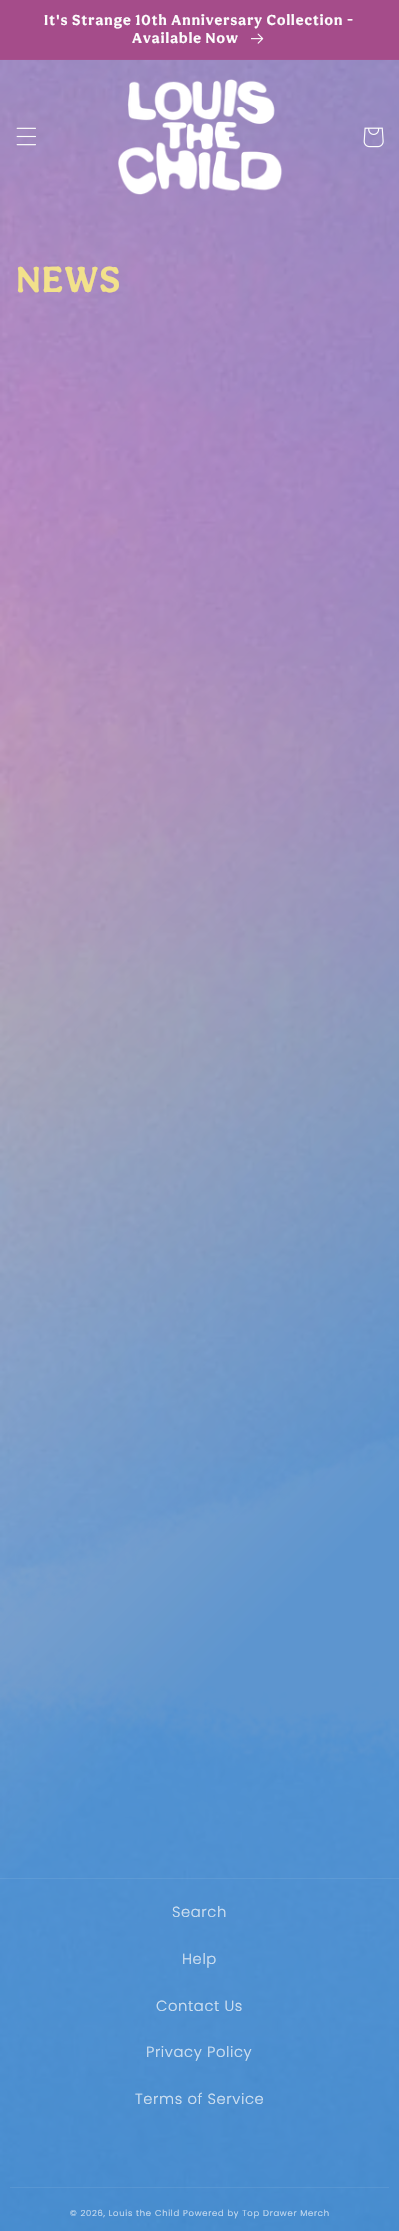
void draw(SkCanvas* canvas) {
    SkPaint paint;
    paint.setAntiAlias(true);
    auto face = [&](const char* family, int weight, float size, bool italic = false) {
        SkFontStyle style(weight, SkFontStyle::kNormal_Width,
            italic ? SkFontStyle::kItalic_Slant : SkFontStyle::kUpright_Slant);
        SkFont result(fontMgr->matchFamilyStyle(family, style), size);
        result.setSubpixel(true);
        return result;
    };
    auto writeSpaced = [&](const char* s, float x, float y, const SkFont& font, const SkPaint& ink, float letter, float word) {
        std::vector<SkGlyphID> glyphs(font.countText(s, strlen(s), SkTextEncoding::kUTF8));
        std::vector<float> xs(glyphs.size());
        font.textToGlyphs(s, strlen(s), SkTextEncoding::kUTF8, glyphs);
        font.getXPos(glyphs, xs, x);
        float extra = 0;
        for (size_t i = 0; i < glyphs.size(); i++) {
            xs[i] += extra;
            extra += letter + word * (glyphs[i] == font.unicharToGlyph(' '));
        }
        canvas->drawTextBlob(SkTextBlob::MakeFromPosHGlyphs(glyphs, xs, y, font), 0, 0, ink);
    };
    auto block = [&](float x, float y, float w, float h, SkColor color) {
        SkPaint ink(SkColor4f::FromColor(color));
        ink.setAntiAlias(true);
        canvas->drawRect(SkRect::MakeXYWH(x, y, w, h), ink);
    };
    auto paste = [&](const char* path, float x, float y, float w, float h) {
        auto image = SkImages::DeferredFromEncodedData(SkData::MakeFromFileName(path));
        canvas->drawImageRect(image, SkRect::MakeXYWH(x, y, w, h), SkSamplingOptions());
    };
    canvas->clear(SK_ColorWHITE);
    block(0, 59, 399, 1, SkColorSetRGB(166, 80, 141));
    block(0, 0, 399, 59, SkColorSetRGB(165, 76, 138));
    auto kFont1 = face("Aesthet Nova", 700, 15);
    paint.setColor(SkColorSetRGB(252, 252, 252));
    writeSpaced("It's Strange 10th Anniversary Collection -", 44, 25, kFont1, paint, 1.05f, 0);
    writeSpaced("Available Now", 132, 43, kFont1, paint, 1.05f, 0);
    paste("pic1.png", 251, 33, 13, 11);
    paste("pic5.png", 0, 60, 399, 2171);
    paste("pic6.png", 0, 1432, 399, 345);
    {
        const SkColor colors[] = {SkColorSetARGB(102, 195, 155, 176), SkColorSetARGB(204, 53, 125, 202)};
        const float stops[] = {0, 0.72f};
        const SkPoint ends[] = {{-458, 458}, {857, 1773}};
        paint.setShader(SkGradientShader::MakeLinear(ends, colors, stops, 2, SkTileMode::kClamp));
        paint.setAlpha(255);
    }
    canvas->drawRect(SkRect::MakeXYWH(0, 60, 399, 2171), paint);
    paste("pic2.png", 16, 127, 20, 19);
    paste("pic3.png", 118, 79, 165, 116);
    paste("pic4.png", 363, 127, 21, 21);
    auto kFont2 = face("Aesthet Nova", 700, 37.5f);
    paint.setShader(nullptr);
    paint.setColor(SkColorSetRGB(242, 225, 139));
    writeSpaced("NEWS", 16, 292, kFont2, paint, 1, 0);
    block(0, 1878, 399, 1, SkColorSetARGB(20, 252, 252, 252));
    auto kFont3 = face("Poppins", 300, 14.75f);
    paint.setColor(SkColorSetRGB(209, 225, 241));
    writeSpaced("Search", 172, 1917, kFont3, paint, 0.6f, 0);
    writeSpaced("Help", 182, 1964, kFont3, paint, 0.6f, 0);
    writeSpaced("Contact Us", 156, 2011, kFont3, paint, 0.6f, 0);
    writeSpaced("Privacy Policy", 146, 2057, kFont3, paint, 0.6f, 0);
    writeSpaced("Terms of Service", 135, 2104, kFont3, paint, 0.6f, 0);
    block(10, 2187, 379, 1, SkColorSetARGB(20, 252, 252, 252));
    auto kFont4 = face("Poppins", 300, 8.4f);
    writeSpaced("© 2026, Louis the Child", 70, 2216, kFont4, paint, 0.75f, 0);
    writeSpaced("Powered by Top Drawer Merch", 183, 2216, kFont4, paint, 0.75f, 0);
}
